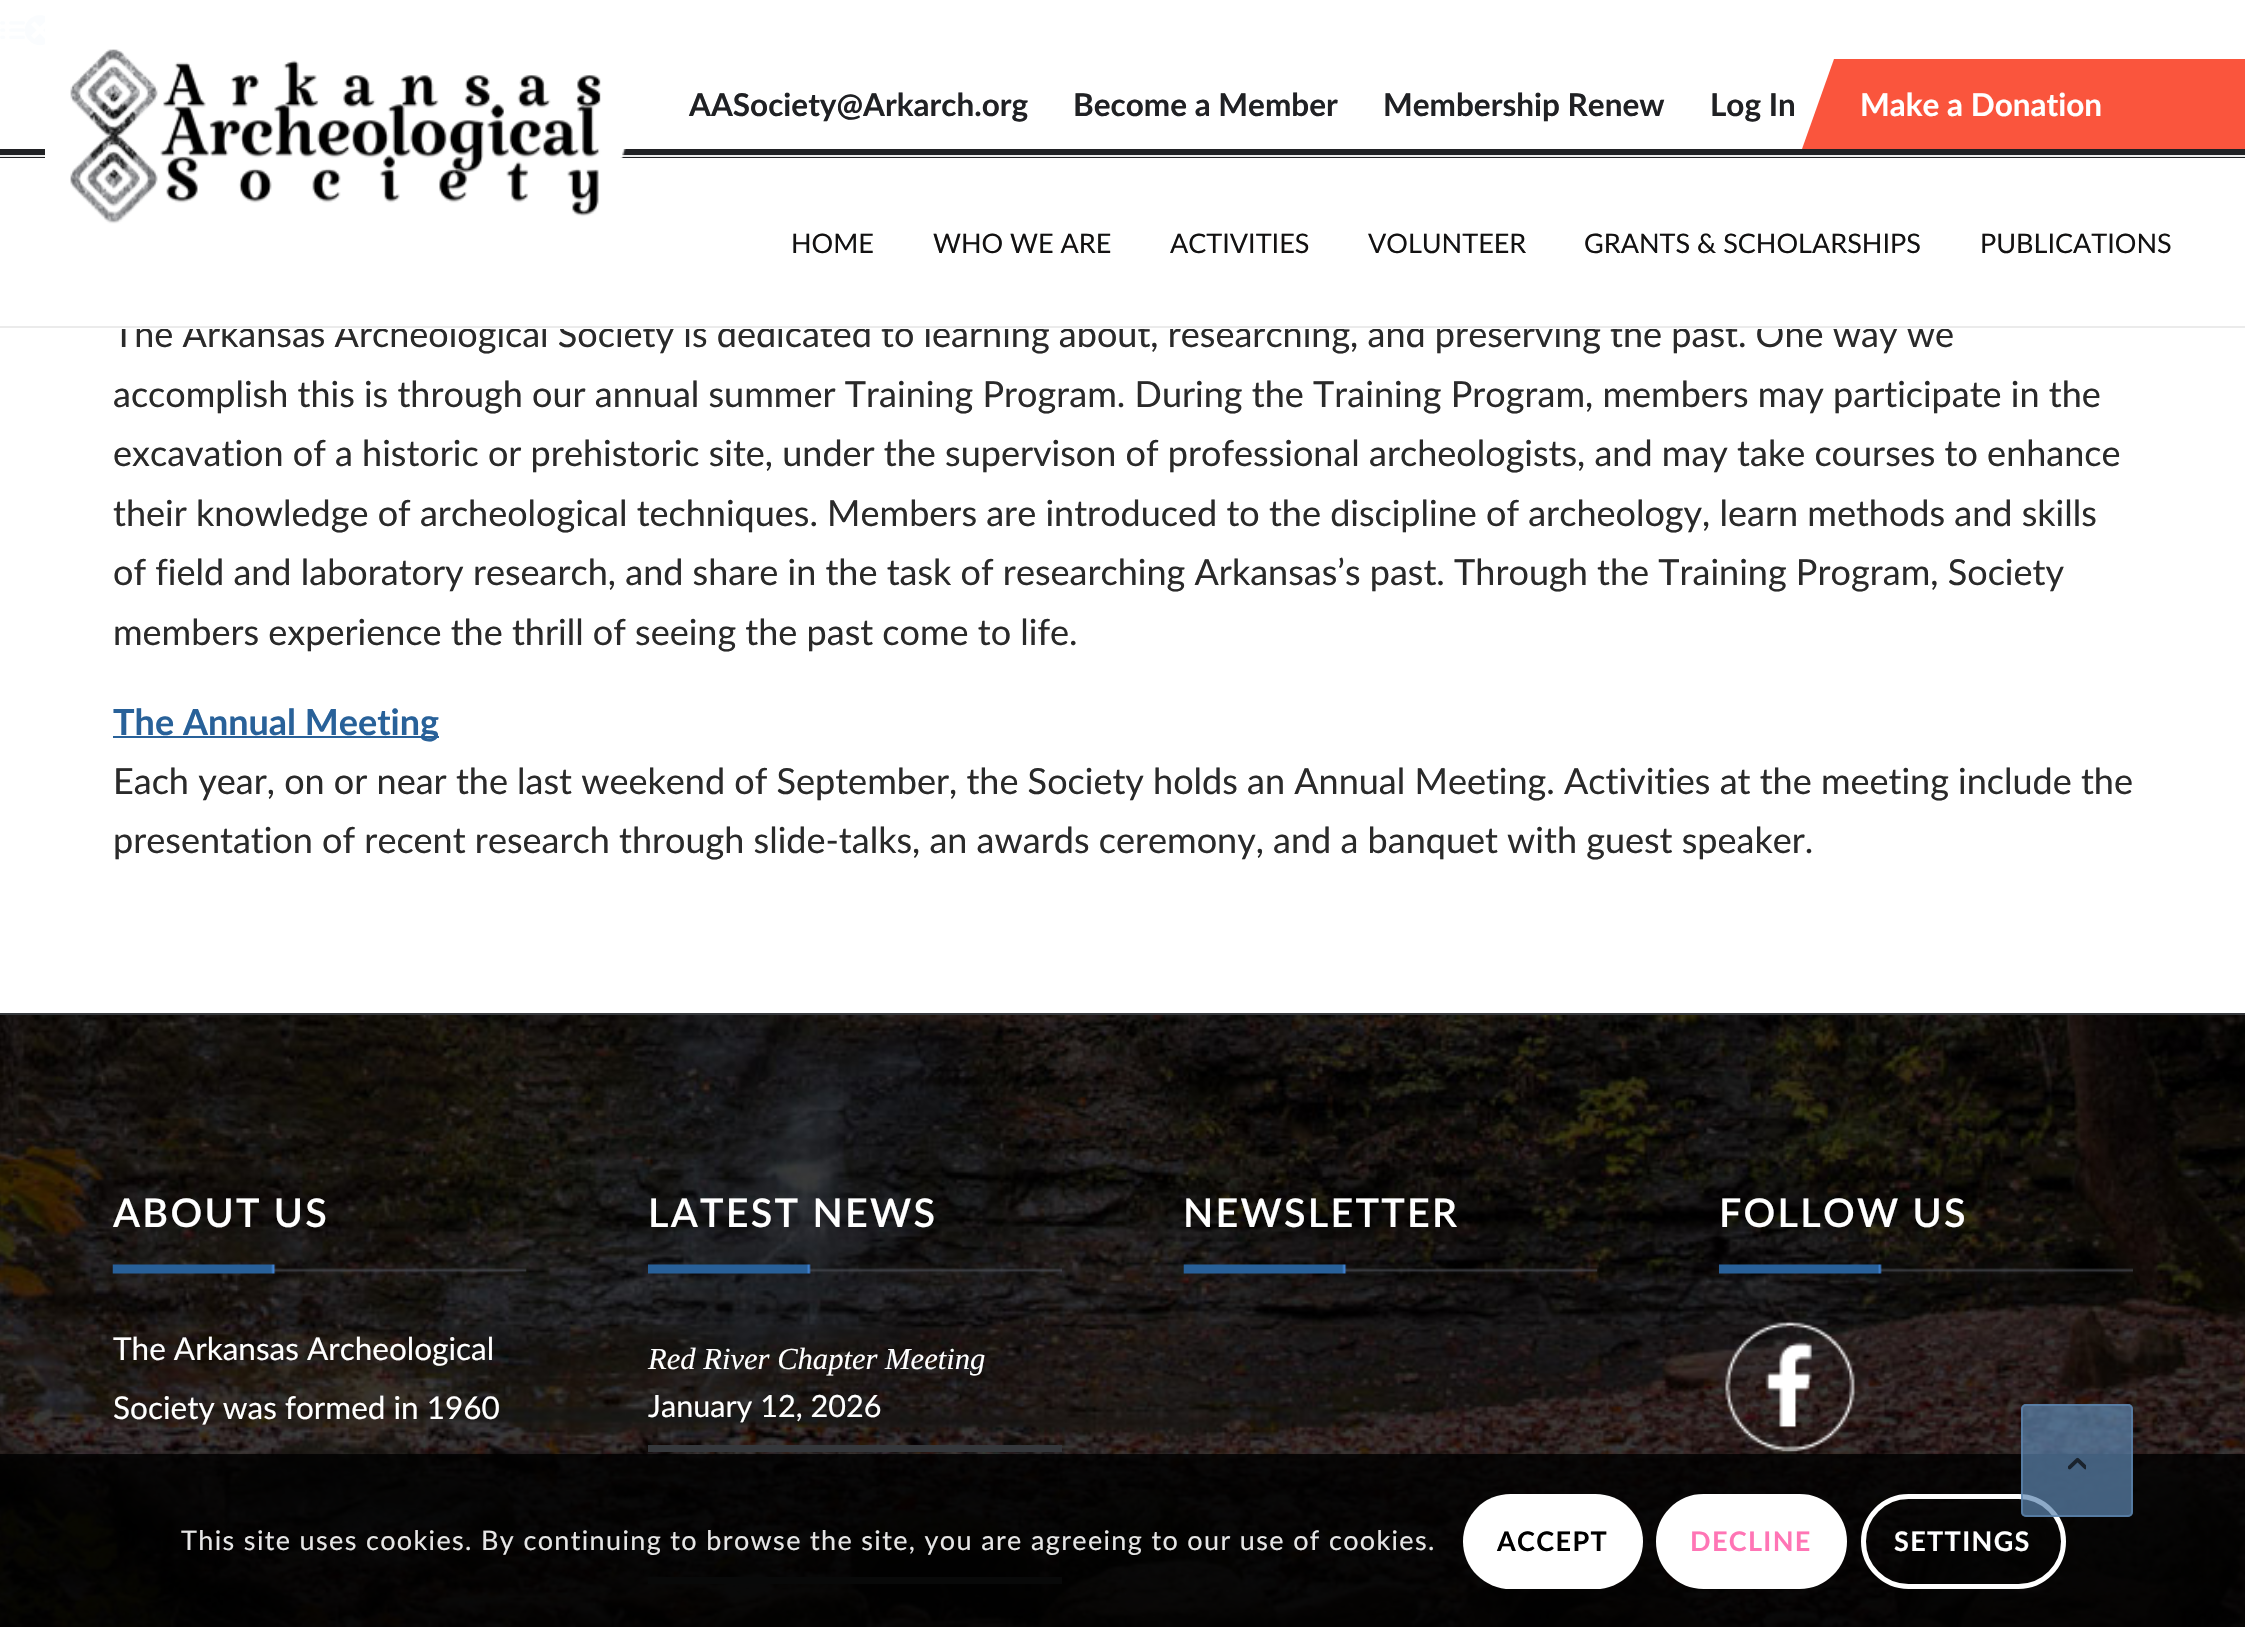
void draw(SkCanvas* canvas) {
    SkPaint paint;
    paint.setAntiAlias(true);
    auto face = [&](const char* family, int weight, float size, bool italic = false) {
        SkFontStyle style(weight, SkFontStyle::kNormal_Width,
            italic ? SkFontStyle::kItalic_Slant : SkFontStyle::kUpright_Slant);
        SkFont result(fontMgr->matchFamilyStyle(family, style), size);
        result.setSubpixel(true);
        return result;
    };
    auto write = [&](const char* s, float x, float y, const SkFont& font, SkColor color) {
        SkPaint ink(SkColor4f::FromColor(color));
        ink.setAntiAlias(true);
        canvas->drawString(s, x, y, font, ink);
    };
    auto writeSpaced = [&](const char* s, float x, float y, const SkFont& font, const SkPaint& ink, float letter, float word) {
        std::vector<SkGlyphID> glyphs(font.countText(s, strlen(s), SkTextEncoding::kUTF8));
        std::vector<float> xs(glyphs.size());
        font.textToGlyphs(s, strlen(s), SkTextEncoding::kUTF8, glyphs);
        font.getXPos(glyphs, xs, x);
        float extra = 0;
        for (size_t i = 0; i < glyphs.size(); i++) {
            xs[i] += extra;
            extra += letter + word * (glyphs[i] == font.unicharToGlyph(' '));
        }
        canvas->drawTextBlob(SkTextBlob::MakeFromPosHGlyphs(glyphs, xs, y, font), 0, 0, ink);
    };
    auto block = [&](float x, float y, float w, float h, SkColor color) {
        SkPaint ink(SkColor4f::FromColor(color));
        ink.setAntiAlias(true);
        canvas->drawRect(SkRect::MakeXYWH(x, y, w, h), ink);
    };
    auto card = [&](float x, float y, float w, float h, float radius, SkColor color) {
        SkPaint ink(SkColor4f::FromColor(color));
        ink.setAntiAlias(true);
        canvas->drawRoundRect(SkRect::MakeXYWH(x, y, w, h), radius, radius, ink);
    };
    auto paste = [&](const char* path, float x, float y, float w, float h) {
        auto image = SkImages::DeferredFromEncodedData(SkData::MakeFromFileName(path));
        canvas->drawImageRect(image, SkRect::MakeXYWH(x, y, w, h), SkSamplingOptions());
    };
    canvas->clear(SK_ColorWHITE);
    auto kFont1 = face("Lato", 400, 36);
    write("The Arkansas Archeological Society is dedicated to learning about, researching, and preserving the past. One way we", 113, 347, kFont1, SkColorSetRGB(42, 42, 42));
    block(113, 320, 1835, 9, SK_ColorWHITE);
    paste("pic1.png", 0, 21, 26, 19);
    paste("pic2.png", 24, 15, 21, 31);
    block(0, 15, 45, 31, SkColorSetARGB(242, 255, 255, 255));
    block(0, 149, 2245, 9, SkColorSetRGB(32, 33, 36));
    auto kFont2 = face("Lato", 700, 31.5f);
    write("AASociety@Arkarch.org", 689, 116, kFont2, SkColorSetRGB(32, 33, 36));
    write("Become a Member", 1073, 116, kFont2, SkColorSetRGB(32, 33, 36));
    write("Membership Renew", 1383, 116, kFont2, SkColorSetRGB(32, 33, 36));
    write("Log In", 1710, 116, kFont2, SkColorSetRGB(32, 33, 36));
    paint.setColor(SkColorSetRGB(250, 85, 61));
    canvas->drawPath(SkPathBuilder().moveTo(1834, 59).lineTo(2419, 59).lineTo(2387, 149).lineTo(1802, 149).close().detach(), paint);
    write("Make a Donation", 1860, 116, kFont2, SK_ColorWHITE);
    block(0, 155, 2245, 2, SkColorSetRGB(235, 235, 235));
    block(0, 326, 2245, 2, SkColorSetRGB(235, 235, 235));
    paste("pic3.png", 45, 16, 598, 208);
    auto kFont3 = face("Lato", 400, 27);
    write("HOME", 791, 253, kFont3, SkColorSetRGB(19, 18, 18));
    write("WHO WE ARE", 933, 253, kFont3, SkColorSetRGB(19, 18, 18));
    write("ACTIVITIES", 1170, 253, kFont3, SkColorSetRGB(19, 18, 18));
    write("VOLUNTEER", 1368, 253, kFont3, SkColorSetRGB(19, 18, 18));
    write("GRANTS & SCHOLARSHIPS", 1584, 253, kFont3, SkColorSetRGB(19, 18, 18));
    write("PUBLICATIONS", 1980, 253, kFont3, SkColorSetRGB(19, 18, 18));
    write("accomplish this is through our annual summer Training Program. During the Training Program, members may participate in the", 113, 407, kFont1, SkColorSetRGB(42, 42, 42));
    write("excavation of a historic or prehistoric site, under the supervison of professional archeologists, and may take courses to enhance", 113, 466, kFont1, SkColorSetRGB(42, 42, 42));
    write("their knowledge of archeological techniques. Members are introduced to the discipline of archeology, learn methods and skills", 113, 526, kFont1, SkColorSetRGB(42, 42, 42));
    write("of field and laboratory research, and share in the task of researching Arkansas’s past. Through the Training Program, Society", 113, 585, kFont1, SkColorSetRGB(42, 42, 42));
    write("members experience the thrill of seeing the past come to life.", 113, 645, kFont1, SkColorSetRGB(42, 42, 42));
    block(113, 736, 326, 2, SkColorSetRGB(40, 97, 153));
    auto kFont4 = face("Lato", 700, 36);
    write("The Annual Meeting", 113, 735, kFont4, SkColorSetRGB(40, 97, 153));
    write("Each year, on or near the last weekend of September, the Society holds an Annual Meeting. Activities at the meeting include the", 113, 794, kFont1, SkColorSetRGB(42, 42, 42));
    write("presentation of recent research through slide-talks, an awards ceremony, and a banquet with guest speaker.", 113, 853, kFont1, SkColorSetRGB(42, 42, 42));
    paste("pic4.png", 0, 1015, 2245, 612);
    block(0, 1013, 2245, 2, SkColorSetRGB(53, 56, 60));
    paste("pic5.png", 112, 1264, 415, 10);
    auto kFont5 = face("Lato", 600, 39.5f);
    paint.setColor(SK_ColorWHITE);
    writeSpaced("ABOUT US", 113, 1227, kFont5, paint, 2.25f, 0);
    auto kFont6 = face("Lato", 400, 31.5f);
    write("The Arkansas Archeological", 113, 1360, kFont6, SK_ColorWHITE);
    write("Society was formed in 1960", 113, 1419, kFont6, SK_ColorWHITE);
    paste("pic6.png", 648, 1264, 414, 10);
    writeSpaced("LATEST NEWS", 648, 1227, kFont5, paint, 2.25f, 0);
    auto kFont7 = face("Liberation Serif", 400, 30.6f, true);
    write("Red River Chapter Meeting", 648, 1369, kFont7, SK_ColorWHITE);
    auto kFont8 = face("Lato", 400, 30.6f);
    write("January 12, 2026", 648, 1417, kFont8, SK_ColorWHITE);
    block(648, 1445, 414, 7, SkColorSetRGB(53, 56, 60));
    block(648, 1577, 414, 7, SkColorSetRGB(53, 56, 60));
    paste("pic7.png", 1183, 1264, 415, 10);
    writeSpaced("NEWSLETTER", 1183, 1227, kFont5, paint, 2.25f, 0);
    paste("pic8.png", 1719, 1264, 414, 10);
    writeSpaced("FOLLOW US", 1719, 1227, kFont5, paint, 2.25f, 0);
    paste("pic9.png", 1725, 1322, 130, 130);
    block(0, 1454, 2245, 173, SkColorSetARGB(217, 0, 0, 0));
    paint.setStyle(SkPaint::kStroke_Style);
    paint.setStrokeWidth(5);
    canvas->drawRoundRect(SkRect::MakeXYWH(1863.5f, 1496.5f, 200, 90), 45, 45, paint);
    card(2021, 1404, 112, 113, 5, SkColorSetARGB(179, 92, 134, 176));
    paint.setStrokeWidth(2);
    paint.setColor(SkColorSetARGB(179, 92, 134, 176));
    canvas->drawRoundRect(SkRect::MakeXYWH(2022, 1405, 110, 111), 4, 4, paint);
    paste("pic10.png", 2068, 1457, 18, 13);
    paint.setStyle(SkPaint::kFill_Style);
    paint.setColor(SkColorSetRGB(230, 230, 230));
    writeSpaced("This site uses cookies. By continuing to browse the site, you are agreeing to our use of cookies.", 181, 1550, kFont3, paint, 1.35f, 0);
    card(1463, 1494, 180, 95, 47.5f, SK_ColorWHITE);
    auto kFont9 = face("Lato", 700, 27);
    paint.setColor(SK_ColorBLACK);
    writeSpaced("ACCEPT", 1497, 1551, kFont9, paint, 1.35f, 0);
    paint.setColor(SK_ColorWHITE);
    canvas->drawRoundRect(SkRect::MakeXYWH(1658.5f, 1496.5f, 186, 90), 45, 45, paint);
    paint.setStyle(SkPaint::kStroke_Style);
    paint.setStrokeWidth(5);
    canvas->drawRoundRect(SkRect::MakeXYWH(1658.5f, 1496.5f, 186, 90), 45, 45, paint);
    paint.setStyle(SkPaint::kFill_Style);
    paint.setColor(SkColorSetRGB(255, 117, 181));
    writeSpaced("DECLINE", 1690, 1551, kFont9, paint, 1.35f, 0);
    paint.setColor(SK_ColorWHITE);
    writeSpaced("SETTINGS", 1894, 1551, kFont9, paint, 1.35f, 0);
}
